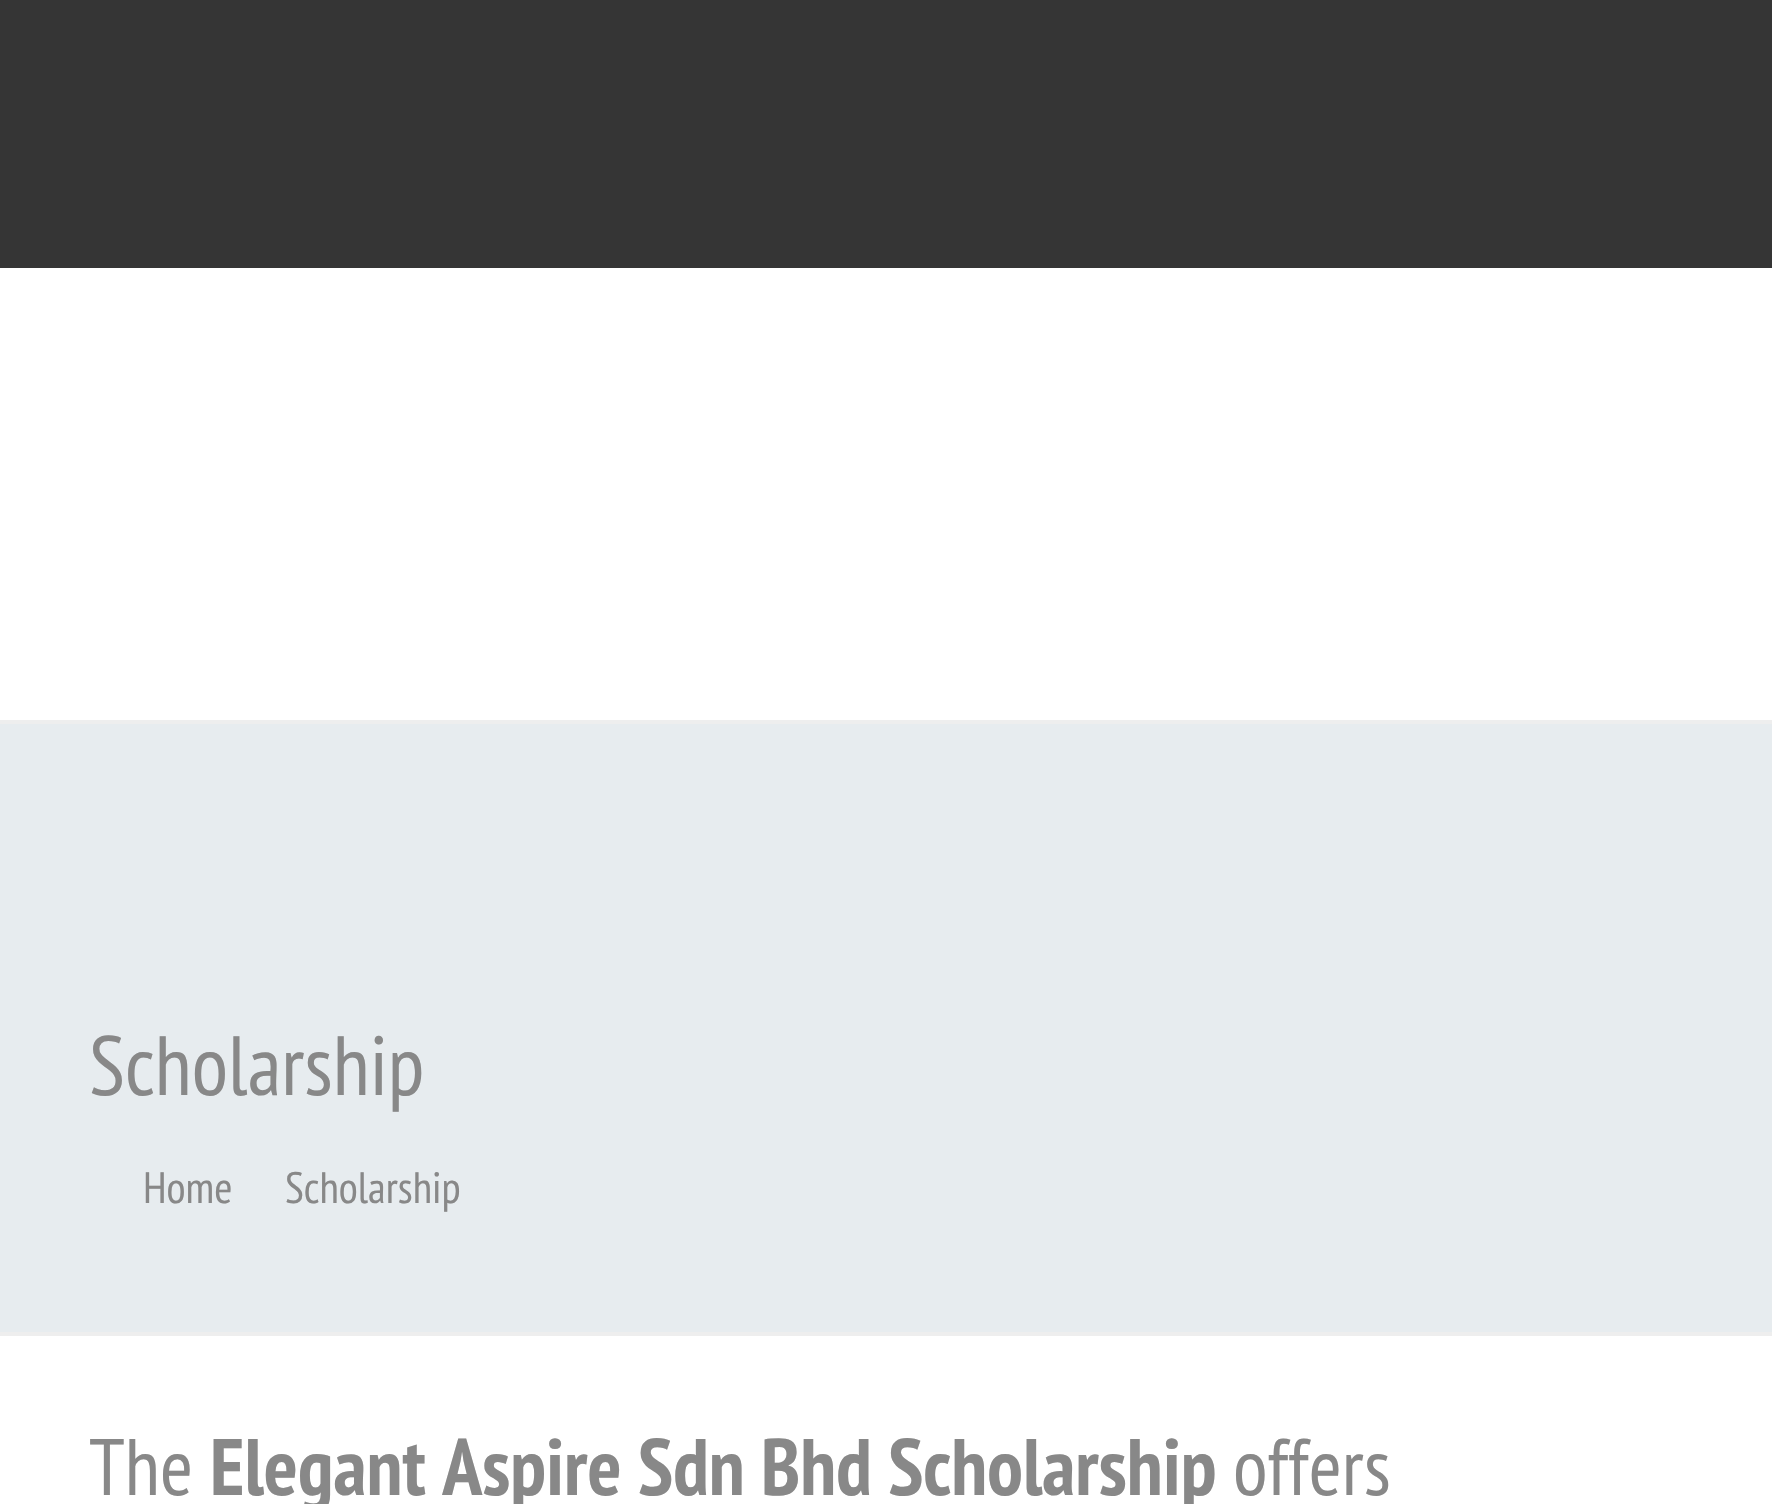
void draw(SkCanvas* canvas) {
    SkPaint paint;
    paint.setAntiAlias(true);
    auto face = [&](const char* family, int weight, float size, bool italic = false) {
        SkFontStyle style(weight, SkFontStyle::kNormal_Width,
            italic ? SkFontStyle::kItalic_Slant : SkFontStyle::kUpright_Slant);
        SkFont result(fontMgr->matchFamilyStyle(family, style), size);
        result.setSubpixel(true);
        return result;
    };
    auto write = [&](const char* s, float x, float y, const SkFont& font, SkColor color) {
        SkPaint ink(SkColor4f::FromColor(color));
        ink.setAntiAlias(true);
        canvas->drawString(s, x, y, font, ink);
    };
    auto block = [&](float x, float y, float w, float h, SkColor color) {
        SkPaint ink(SkColor4f::FromColor(color));
        ink.setAntiAlias(true);
        canvas->drawRect(SkRect::MakeXYWH(x, y, w, h), ink);
    };
    canvas->clear(SK_ColorWHITE);
    block(0, 0, 1772, 268, SkColorSetRGB(53, 53, 53));
    block(0, 724, 1772, 608, SkColorSetRGB(231, 236, 239));
    block(0, 720, 1772, 4, SkColorSetRGB(238, 238, 238));
    block(0, 1332, 1772, 4, SkColorSetRGB(238, 238, 238));
    auto kFont1 = face("PT Sans Narrow", 400, 84);
    write("Scholarship", 89, 1095, kFont1, SkColorSetRGB(136, 136, 136));
    auto kFont2 = face("PT Sans Narrow", 400, 44);
    write("Home", 143, 1203, kFont2, SkColorSetRGB(136, 136, 136));
    write("Scholarship", 285, 1203, kFont2, SkColorSetRGB(136, 136, 136));
    auto kFont3 = face("PT Sans Narrow", 400, 80);
    write("The", 89, 1495, kFont3, SkColorSetRGB(136, 136, 136));
    auto kFont4 = face("PT Sans Narrow", 700, 80);
    write("Elegant Aspire Sdn Bhd Scholarship", 210, 1495, kFont4, SkColorSetRGB(136, 136, 136));
    write("offers", 1233, 1495, kFont3, SkColorSetRGB(136, 136, 136));
}
